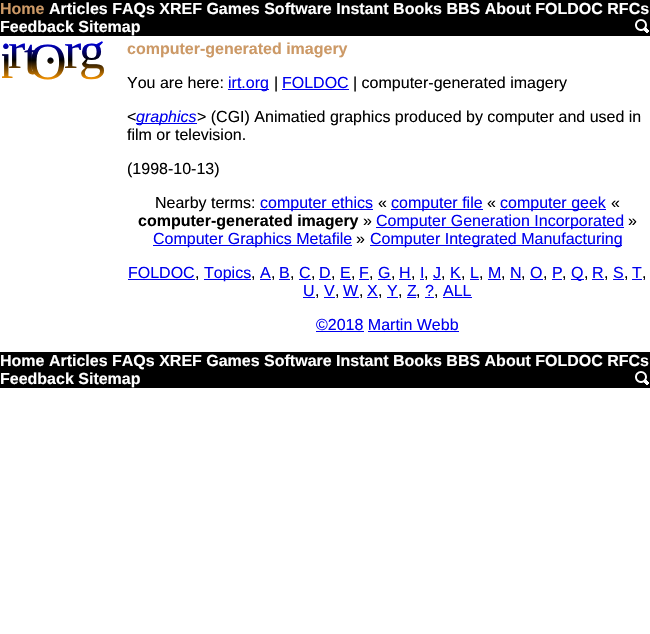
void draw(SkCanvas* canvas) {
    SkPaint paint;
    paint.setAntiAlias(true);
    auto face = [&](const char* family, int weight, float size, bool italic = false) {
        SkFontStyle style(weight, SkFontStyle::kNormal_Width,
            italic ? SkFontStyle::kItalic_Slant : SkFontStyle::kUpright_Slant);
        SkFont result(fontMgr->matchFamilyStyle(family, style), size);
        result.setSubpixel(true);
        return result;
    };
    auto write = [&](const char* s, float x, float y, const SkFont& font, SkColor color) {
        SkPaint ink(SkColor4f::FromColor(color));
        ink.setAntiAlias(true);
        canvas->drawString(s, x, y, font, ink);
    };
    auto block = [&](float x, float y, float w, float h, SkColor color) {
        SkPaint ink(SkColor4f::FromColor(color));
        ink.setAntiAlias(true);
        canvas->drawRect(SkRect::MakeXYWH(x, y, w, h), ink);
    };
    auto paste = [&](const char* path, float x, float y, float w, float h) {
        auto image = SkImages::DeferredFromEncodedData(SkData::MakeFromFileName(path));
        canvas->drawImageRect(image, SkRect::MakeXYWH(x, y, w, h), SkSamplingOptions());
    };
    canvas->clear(SK_ColorWHITE);
    block(0, 0, 650, 36, SK_ColorBLACK);
    auto kFont1 = face("Liberation Sans", 700, 16);
    write("Home", 0, 14, kFont1, SkColorSetRGB(204, 153, 102));
    write("Articles FAQs XREF Games Software Instant Books BBS About FOLDOC RFCs", 49, 14, kFont1, SK_ColorWHITE);
    write("Feedback Sitemap", 0, 32, kFont1, SK_ColorWHITE);
    paste("pic1.png", 635, 19, 14, 14);
    canvas->save();
    canvas->clipRect(SkRect::MakeXYWH(2, 40, 120, 45));
    auto kFont2 = face("Liberation Serif", 400, 52);
    {
        const SkColor colors[] = {SkColorSetRGB(0, 0, 255), SK_ColorBLACK, SkColorSetRGB(255, 153, 0)};
        const float stops[] = {0, 0.5f, 1};
        const SkPoint ends[] = {{2, 40}, {2, 80}};
        paint.setShader(SkGradientShader::MakeLinear(ends, colors, stops, 3, SkTileMode::kClamp));
        paint.setAlpha(255);
    }
    canvas->drawString("i", -1, 78, kFont2, paint);
    canvas->restore();
    canvas->drawString("r", 8, 68, kFont2, paint);
    canvas->drawString("t", 24, 74, kFont2, paint);
    canvas->drawString(".", 44, 63, kFont2, paint);
    canvas->drawString("O", 29, 79, kFont2, paint);
    canvas->drawString("r", 64, 68, kFont2, paint);
    canvas->drawString("g", 79, 68, kFont2, paint);
    write("computer-generated imagery", 127, 54, kFont1, SkColorSetRGB(204, 153, 102));
    auto kFont3 = face("Liberation Sans", 400, 16);
    write("You are here:", 127, 88, kFont3, SK_ColorBLACK);
    block(228, 89, 41, 1, SkColorSetRGB(0, 0, 238));
    write("irt.org", 228, 88, kFont3, SkColorSetRGB(0, 0, 238));
    write("|", 274, 88, kFont3, SK_ColorBLACK);
    write("FOLDOC", 282, 88, kFont3, SkColorSetRGB(0, 0, 238));
    block(282, 89, 67, 1, SkColorSetRGB(0, 0, 238));
    write("| computer-generated imagery", 353, 88, kFont3, SK_ColorBLACK);
    write("<", 127, 122, kFont3, SK_ColorBLACK);
    block(136, 123, 61, 1, SkColorSetRGB(0, 0, 238));
    auto kFont4 = face("Liberation Sans", 400, 16, true);
    write("graphics", 136, 122, kFont4, SkColorSetRGB(0, 0, 238));
    write("> (CGI) Animatied graphics produced by computer and used in", 197, 122, kFont3, SK_ColorBLACK);
    write("film or television.", 127, 140, kFont3, SK_ColorBLACK);
    write("(1998-10-13)", 127, 174, kFont3, SK_ColorBLACK);
    write("Nearby terms:", 155, 208, kFont3, SK_ColorBLACK);
    block(260, 209, 113, 1, SkColorSetRGB(0, 0, 238));
    write("computer ethics", 260, 208, kFont3, SkColorSetRGB(0, 0, 238));
    write("«", 378, 208, kFont3, SK_ColorBLACK);
    block(391, 209, 92, 1, SkColorSetRGB(0, 0, 238));
    write("computer file", 391, 208, kFont3, SkColorSetRGB(0, 0, 238));
    write("«", 487, 208, kFont3, SK_ColorBLACK);
    block(500, 209, 106, 1, SkColorSetRGB(0, 0, 238));
    write("computer geek", 500, 208, kFont3, SkColorSetRGB(0, 0, 238));
    write("«", 611, 208, kFont3, SK_ColorBLACK);
    write("computer-generated imagery", 138, 226, kFont1, SK_ColorBLACK);
    write("»", 363, 226, kFont3, SK_ColorBLACK);
    block(376, 227, 248, 1, SkColorSetRGB(0, 0, 238));
    write("Computer Generation Incorporated", 376, 226, kFont3, SkColorSetRGB(0, 0, 238));
    write("»", 628, 226, kFont3, SK_ColorBLACK);
    block(153, 245, 199, 1, SkColorSetRGB(0, 0, 238));
    write("Computer Graphics Metafile", 153, 244, kFont3, SkColorSetRGB(0, 0, 238));
    write("»", 356, 244, kFont3, SK_ColorBLACK);
    block(370, 245, 252, 1, SkColorSetRGB(0, 0, 238));
    write("Computer Integrated Manufacturing", 370, 244, kFont3, SkColorSetRGB(0, 0, 238));
    write("FOLDOC", 128, 278, kFont3, SkColorSetRGB(0, 0, 238));
    block(128, 279, 67, 1, SkColorSetRGB(0, 0, 238));
    block(204, 279, 47, 1, SkColorSetRGB(0, 0, 238));
    write("Topics", 204, 278, kFont3, SkColorSetRGB(0, 0, 238));
    write("A", 260, 278, kFont3, SkColorSetRGB(0, 0, 238));
    block(260, 279, 11, 1, SkColorSetRGB(0, 0, 238));
    write("B", 279, 278, kFont3, SkColorSetRGB(0, 0, 238));
    block(279, 279, 11, 1, SkColorSetRGB(0, 0, 238));
    write("C", 299, 278, kFont3, SkColorSetRGB(0, 0, 238));
    block(299, 279, 12, 1, SkColorSetRGB(0, 0, 238));
    write("D", 319, 278, kFont3, SkColorSetRGB(0, 0, 238));
    block(319, 279, 12, 1, SkColorSetRGB(0, 0, 238));
    write("E", 340, 278, kFont3, SkColorSetRGB(0, 0, 238));
    block(340, 279, 11, 1, SkColorSetRGB(0, 0, 238));
    write("F", 359, 278, kFont3, SkColorSetRGB(0, 0, 238));
    block(359, 279, 10, 1, SkColorSetRGB(0, 0, 238));
    write("G", 378, 278, kFont3, SkColorSetRGB(0, 0, 238));
    block(378, 279, 13, 1, SkColorSetRGB(0, 0, 238));
    write("H", 399, 278, kFont3, SkColorSetRGB(0, 0, 238));
    block(399, 279, 12, 1, SkColorSetRGB(0, 0, 238));
    write("I", 420, 278, kFont3, SkColorSetRGB(0, 0, 238));
    block(420, 279, 4, 1, SkColorSetRGB(0, 0, 238));
    write("J", 433, 278, kFont3, SkColorSetRGB(0, 0, 238));
    block(433, 279, 8, 1, SkColorSetRGB(0, 0, 238));
    write("K", 450, 278, kFont3, SkColorSetRGB(0, 0, 238));
    block(450, 279, 11, 1, SkColorSetRGB(0, 0, 238));
    write("L", 470, 278, kFont3, SkColorSetRGB(0, 0, 238));
    block(470, 279, 9, 1, SkColorSetRGB(0, 0, 238));
    write("M", 488, 278, kFont3, SkColorSetRGB(0, 0, 238));
    block(488, 279, 13, 1, SkColorSetRGB(0, 0, 238));
    write("N", 510, 278, kFont3, SkColorSetRGB(0, 0, 238));
    block(510, 279, 11, 1, SkColorSetRGB(0, 0, 238));
    write("O", 530, 278, kFont3, SkColorSetRGB(0, 0, 238));
    block(530, 279, 13, 1, SkColorSetRGB(0, 0, 238));
    write("P", 552, 278, kFont3, SkColorSetRGB(0, 0, 238));
    block(552, 279, 10, 1, SkColorSetRGB(0, 0, 238));
    block(571, 279, 13, 1, SkColorSetRGB(0, 0, 238));
    write("Q", 571, 278, kFont3, SkColorSetRGB(0, 0, 238));
    write("R", 592, 278, kFont3, SkColorSetRGB(0, 0, 238));
    block(592, 279, 12, 1, SkColorSetRGB(0, 0, 238));
    write("S", 613, 278, kFont3, SkColorSetRGB(0, 0, 238));
    block(613, 279, 11, 1, SkColorSetRGB(0, 0, 238));
    write("T", 632, 278, kFont3, SkColorSetRGB(0, 0, 238));
    block(632, 279, 10, 1, SkColorSetRGB(0, 0, 238));
    write(",", 195, 278, kFont3, SK_ColorBLACK);
    write(",", 251, 278, kFont3, SK_ColorBLACK);
    write(",", 271, 278, kFont3, SK_ColorBLACK);
    write(",", 290, 278, kFont3, SK_ColorBLACK);
    write(",", 311, 278, kFont3, SK_ColorBLACK);
    write(",", 331, 278, kFont3, SK_ColorBLACK);
    write(",", 351, 278, kFont3, SK_ColorBLACK);
    write(",", 369, 278, kFont3, SK_ColorBLACK);
    write(",", 391, 278, kFont3, SK_ColorBLACK);
    write(",", 411, 278, kFont3, SK_ColorBLACK);
    write(",", 424, 278, kFont3, SK_ColorBLACK);
    write(",", 441, 278, kFont3, SK_ColorBLACK);
    write(",", 461, 278, kFont3, SK_ColorBLACK);
    write(",", 479, 278, kFont3, SK_ColorBLACK);
    write(",", 501, 278, kFont3, SK_ColorBLACK);
    write(",", 521, 278, kFont3, SK_ColorBLACK);
    write(",", 543, 278, kFont3, SK_ColorBLACK);
    write(",", 562, 278, kFont3, SK_ColorBLACK);
    write(",", 584, 278, kFont3, SK_ColorBLACK);
    write(",", 604, 278, kFont3, SK_ColorBLACK);
    write(",", 624, 278, kFont3, SK_ColorBLACK);
    write(",", 642, 278, kFont3, SK_ColorBLACK);
    write("U", 303, 296, kFont3, SkColorSetRGB(0, 0, 238));
    block(303, 297, 12, 1, SkColorSetRGB(0, 0, 238));
    write("V", 324, 296, kFont3, SkColorSetRGB(0, 0, 238));
    block(324, 297, 11, 1, SkColorSetRGB(0, 0, 238));
    write("W", 343, 296, kFont3, SkColorSetRGB(0, 0, 238));
    block(343, 297, 16, 1, SkColorSetRGB(0, 0, 238));
    write("X", 367, 296, kFont3, SkColorSetRGB(0, 0, 238));
    block(367, 297, 11, 1, SkColorSetRGB(0, 0, 238));
    write("Y", 387, 296, kFont3, SkColorSetRGB(0, 0, 238));
    block(387, 297, 11, 1, SkColorSetRGB(0, 0, 238));
    write("Z", 407, 296, kFont3, SkColorSetRGB(0, 0, 238));
    block(407, 297, 9, 1, SkColorSetRGB(0, 0, 238));
    write("?", 425, 296, kFont3, SkColorSetRGB(0, 0, 238));
    block(425, 297, 9, 1, SkColorSetRGB(0, 0, 238));
    write("ALL", 443, 296, kFont3, SkColorSetRGB(0, 0, 238));
    block(443, 297, 29, 1, SkColorSetRGB(0, 0, 238));
    write(",", 315, 296, kFont3, SK_ColorBLACK);
    write(",", 335, 296, kFont3, SK_ColorBLACK);
    write(",", 359, 296, kFont3, SK_ColorBLACK);
    write(",", 378, 296, kFont3, SK_ColorBLACK);
    write(",", 398, 296, kFont3, SK_ColorBLACK);
    write(",", 416, 296, kFont3, SK_ColorBLACK);
    write(",", 434, 296, kFont3, SK_ColorBLACK);
    write("©2018 Martin Webb", 316, 330, kFont3, SkColorSetRGB(0, 0, 238));
    block(316, 331, 48, 1, SkColorSetRGB(0, 0, 238));
    block(368, 331, 91, 1, SkColorSetRGB(0, 0, 238));
    block(0, 352, 650, 36, SK_ColorBLACK);
    write("Home Articles FAQs XREF Games Software Instant Books BBS About FOLDOC RFCs", 0, 366, kFont1, SK_ColorWHITE);
    write("Feedback Sitemap", 0, 384, kFont1, SK_ColorWHITE);
    paste("pic1.png", 635, 371, 14, 14);
}
